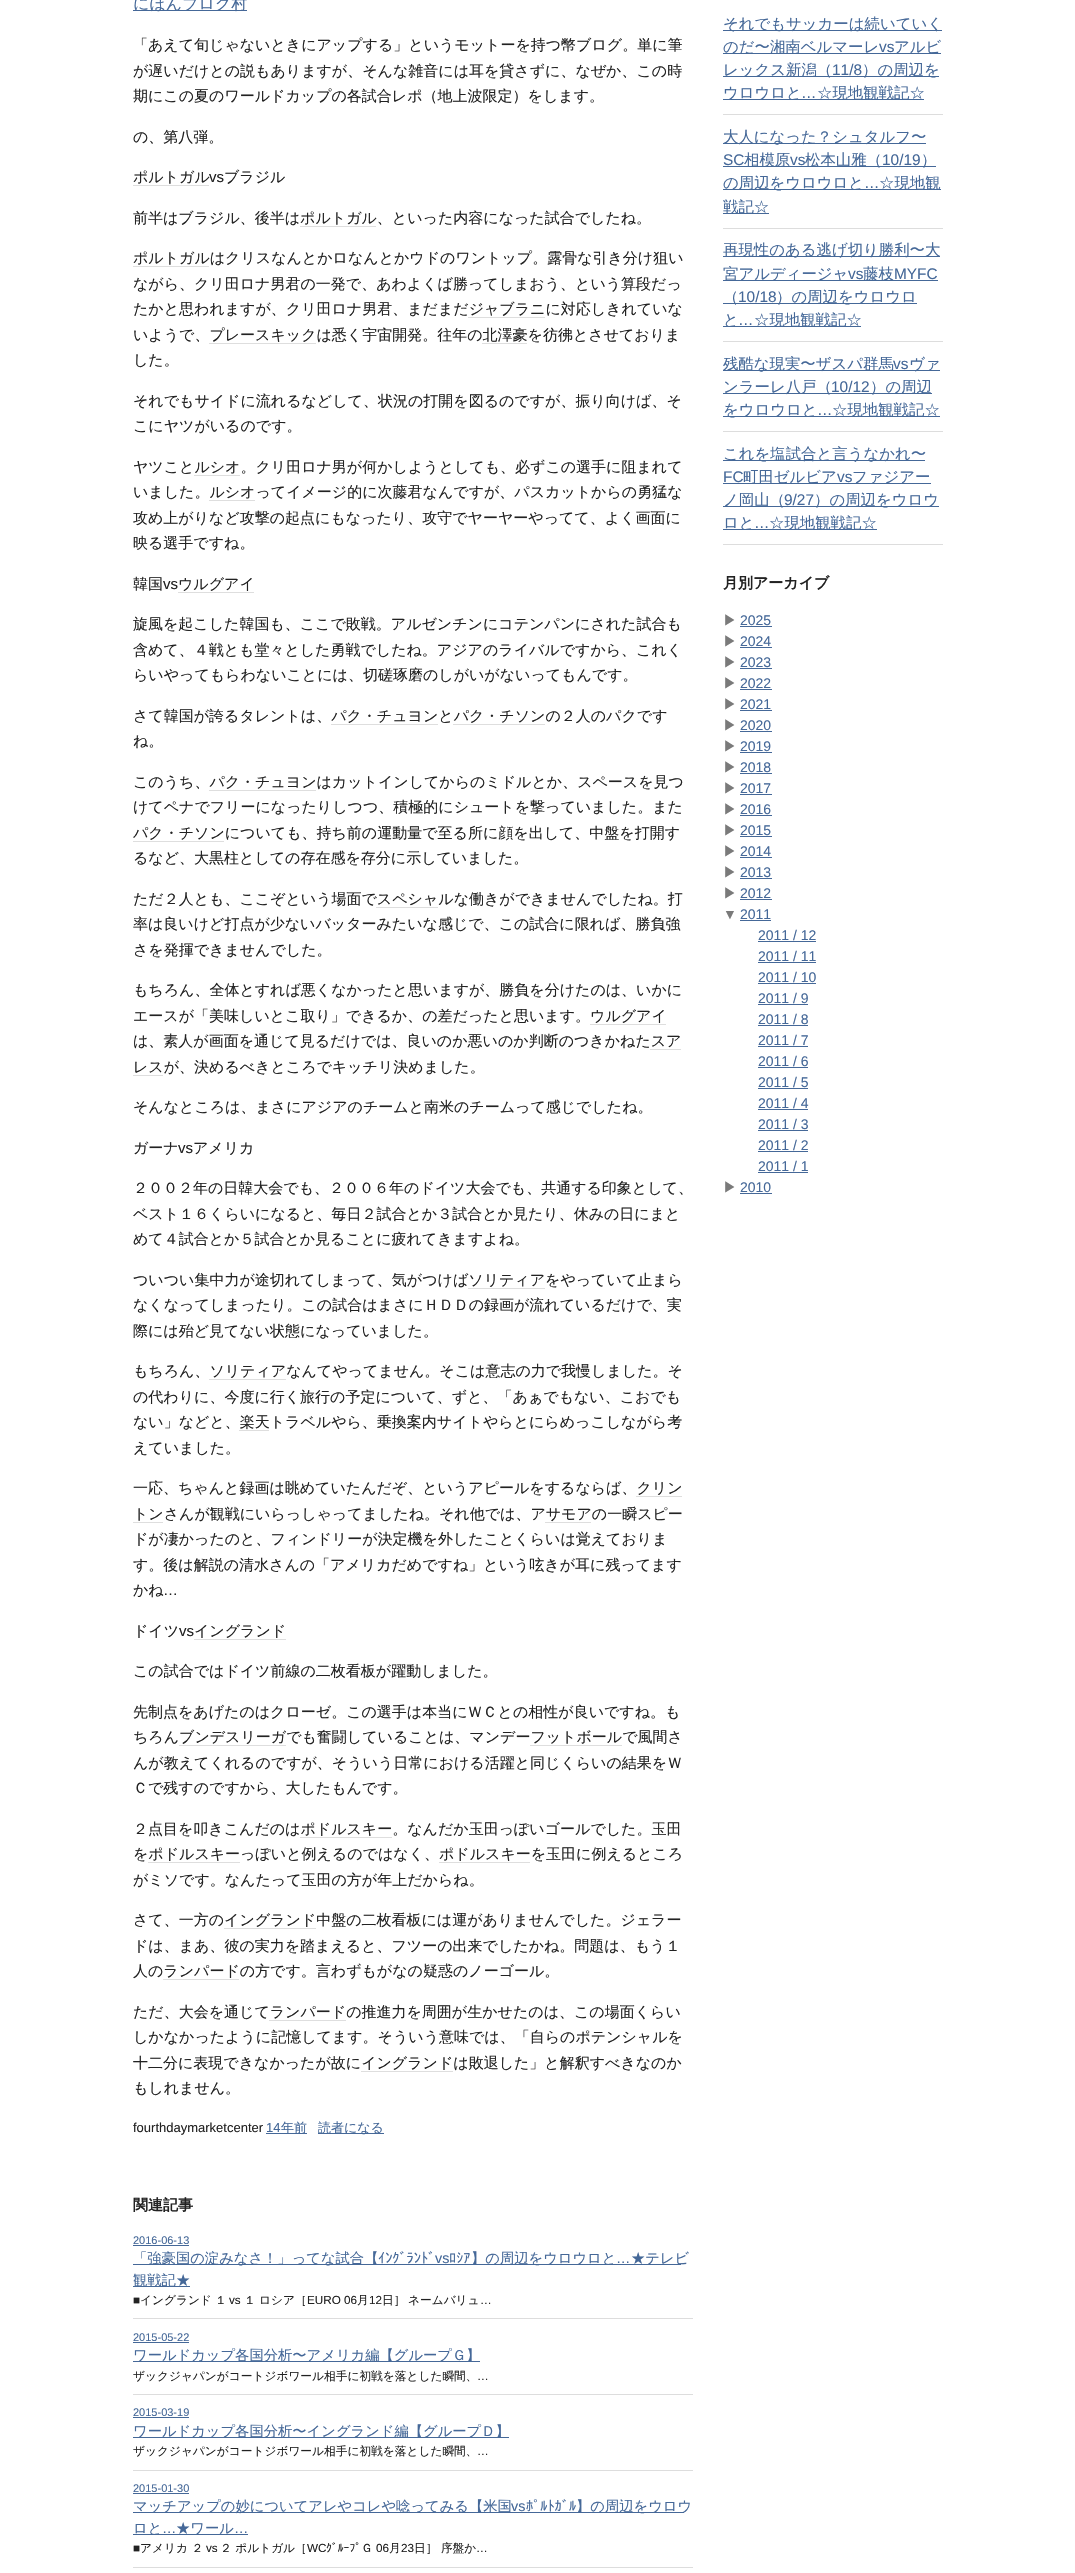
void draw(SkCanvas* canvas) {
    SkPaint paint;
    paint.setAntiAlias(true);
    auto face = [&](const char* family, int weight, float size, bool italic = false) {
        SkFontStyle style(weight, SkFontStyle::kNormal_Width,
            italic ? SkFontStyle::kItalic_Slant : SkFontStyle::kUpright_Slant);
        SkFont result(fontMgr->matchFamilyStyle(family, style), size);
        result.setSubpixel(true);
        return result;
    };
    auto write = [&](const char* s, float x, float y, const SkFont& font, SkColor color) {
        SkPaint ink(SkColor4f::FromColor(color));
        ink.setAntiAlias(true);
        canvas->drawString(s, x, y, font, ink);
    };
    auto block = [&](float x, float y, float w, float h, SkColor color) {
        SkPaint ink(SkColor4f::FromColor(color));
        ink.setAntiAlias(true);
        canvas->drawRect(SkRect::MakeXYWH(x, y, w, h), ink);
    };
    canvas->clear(SK_ColorWHITE);
    block(133, 10, 114, 1, SkColorSetRGB(69, 104, 152));
    auto kFont1 = face("WenQuanYi Zen Hei", 500, 16);
    write("にほんブログ村", 133, 9, kFont1, SkColorSetRGB(69, 104, 152));
    auto kFont2 = face("WenQuanYi Zen Hei", 500, 15);
    write("「あえて旬じゃないときにアップする」というモットーを持つ幣ブログ。単に筆", 133, 50, kFont2, SkColorSetRGB(34, 34, 34));
    write("が遅いだけとの説もありますが、そんな雑音には耳を貸さずに、なぜか、この時", 133, 76, kFont2, SkColorSetRGB(34, 34, 34));
    write("期にこの夏のワールドカップの各試合レポ（地上波限定）をします。", 133, 101, kFont2, SkColorSetRGB(34, 34, 34));
    write("の、第八弾。", 133, 142, kFont2, SkColorSetRGB(34, 34, 34));
    write("ポルトガル", 133, 182, kFont2, SkColorSetRGB(34, 34, 34));
    block(133, 185, 76, 1, SkColorSetRGB(222, 222, 222));
    auto kFont3 = face("Liberation Sans", 400, 15);
    write("vs", 209, 182, kFont3, SkColorSetRGB(34, 34, 34));
    write("ブラジル", 224, 182, kFont2, SkColorSetRGB(34, 34, 34));
    write("前半はブラジル、後半はポルトガル、といった内容になった試合でしたね。", 133, 223, kFont2, SkColorSetRGB(34, 34, 34));
    block(300, 226, 76, 1, SkColorSetRGB(222, 222, 222));
    write("ポルトガルはクリスなんとかロなんとかウドのワントップ。露骨な引き分け狙い", 133, 263, kFont2, SkColorSetRGB(34, 34, 34));
    block(133, 266, 76, 1, SkColorSetRGB(222, 222, 222));
    write("ながら、クリ田ロナ男君の一発で、あわよくば勝ってしまおう、という算段だっ", 133, 289, kFont2, SkColorSetRGB(34, 34, 34));
    write("たかと思われますが、クリ田ロナ男君、まだまだジャブラニに対応しきれていな", 133, 314, kFont2, SkColorSetRGB(34, 34, 34));
    block(468, 317, 77, 1, SkColorSetRGB(222, 222, 222));
    write("いようで、プレースキックは悉く宇宙開発。往年の北澤豪を彷彿とさせておりま", 133, 340, kFont2, SkColorSetRGB(34, 34, 34));
    block(209, 343, 107, 1, SkColorSetRGB(222, 222, 222));
    block(482, 343, 45, 1, SkColorSetRGB(222, 222, 222));
    write("した。", 133, 365, kFont2, SkColorSetRGB(34, 34, 34));
    write("それでもサイドに流れるなどして、状況の打開を図るのですが、振り向けば、そ", 133, 406, kFont2, SkColorSetRGB(34, 34, 34));
    write("こにヤツがいるのです。", 133, 431, kFont2, SkColorSetRGB(34, 34, 34));
    write("ヤツことルシオ。クリ田ロナ男が何かしようとしても、必ずこの選手に阻まれて", 133, 472, kFont2, SkColorSetRGB(34, 34, 34));
    block(194, 475, 46, 1, SkColorSetRGB(222, 222, 222));
    write("いました。ルシオってイメージ的に次藤君なんですが、パスカットからの勇猛な", 133, 497, kFont2, SkColorSetRGB(34, 34, 34));
    block(209, 500, 46, 1, SkColorSetRGB(222, 222, 222));
    write("攻め上がりなど攻撃の起点にもなったり、攻守でヤーヤーやってて、よく画面に", 133, 523, kFont2, SkColorSetRGB(34, 34, 34));
    write("映る選手ですね。", 133, 548, kFont2, SkColorSetRGB(34, 34, 34));
    write("韓国", 133, 589, kFont2, SkColorSetRGB(34, 34, 34));
    write("vs", 163, 589, kFont3, SkColorSetRGB(34, 34, 34));
    write("ウルグアイ", 178, 589, kFont2, SkColorSetRGB(34, 34, 34));
    block(178, 592, 76, 1, SkColorSetRGB(222, 222, 222));
    write("旋風を起こした韓国も、ここで敗戦。アルゼンチンにコテンパンにされた試合も", 133, 629, kFont2, SkColorSetRGB(34, 34, 34));
    write("含めて、４戦とも堂々とした勇戦でしたね。アジアのライバルですから、これく", 133, 655, kFont2, SkColorSetRGB(34, 34, 34));
    write("らいやってもらわないことには、切磋琢磨のしがいがないってもんです。", 133, 680, kFont2, SkColorSetRGB(34, 34, 34));
    write("さて韓国が誇るタレントは、パク・チュヨンとパク・チソンの２人のパクです", 133, 721, kFont2, SkColorSetRGB(34, 34, 34));
    block(331, 724, 107, 1, SkColorSetRGB(222, 222, 222));
    block(453, 724, 92, 1, SkColorSetRGB(222, 222, 222));
    write("ね。", 133, 746, kFont2, SkColorSetRGB(34, 34, 34));
    write("このうち、パク・チュヨンはカットインしてからのミドルとか、スペースを見つ", 133, 787, kFont2, SkColorSetRGB(34, 34, 34));
    block(209, 790, 107, 1, SkColorSetRGB(222, 222, 222));
    write("けてペナでフリーになったりしつつ、積極的にシュートを撃っていました。また", 133, 812, kFont2, SkColorSetRGB(34, 34, 34));
    write("パク・チソンについても、持ち前の運動量で至る所に顔を出して、中盤を打開す", 133, 838, kFont2, SkColorSetRGB(34, 34, 34));
    block(133, 841, 91, 1, SkColorSetRGB(222, 222, 222));
    write("るなど、大黒柱としての存在感を存分に示していました。", 133, 863, kFont2, SkColorSetRGB(34, 34, 34));
    write("ただ２人とも、ここぞという場面でスペシャルな働きができませんでしたね。打", 133, 904, kFont2, SkColorSetRGB(34, 34, 34));
    block(376, 907, 62, 1, SkColorSetRGB(222, 222, 222));
    write("率は良いけど打点が少ないバッターみたいな感じで、この試合に限れば、勝負強", 133, 929, kFont2, SkColorSetRGB(34, 34, 34));
    write("さを発揮できませんでした。", 133, 955, kFont2, SkColorSetRGB(34, 34, 34));
    write("もちろん、全体とすれば悪くなかったと思いますが、勝負を分けたのは、いかに", 133, 995, kFont2, SkColorSetRGB(34, 34, 34));
    write("エースが「美味しいとこ取り」できるか、の差だったと思います。ウルグアイ", 133, 1021, kFont2, SkColorSetRGB(34, 34, 34));
    block(590, 1024, 76, 1, SkColorSetRGB(222, 222, 222));
    write("は、素人が画面を通じて見るだけでは、良いのか悪いのか判断のつきかねたスア", 133, 1046, kFont2, SkColorSetRGB(34, 34, 34));
    write("レスが、決めるべきところでキッチリ決めました。", 133, 1072, kFont2, SkColorSetRGB(34, 34, 34));
    block(650, 1049, 31, 1, SkColorSetRGB(222, 222, 222));
    block(133, 1075, 30, 1, SkColorSetRGB(222, 222, 222));
    write("そんなところは、まさにアジアのチームと南米のチームって感じでしたね。", 133, 1112, kFont2, SkColorSetRGB(34, 34, 34));
    write("ガーナ", 133, 1153, kFont2, SkColorSetRGB(34, 34, 34));
    write("vs", 178, 1153, kFont3, SkColorSetRGB(34, 34, 34));
    write("アメリカ", 193, 1153, kFont2, SkColorSetRGB(34, 34, 34));
    write("２００２年の日韓大会でも、２００６年のドイツ大会でも、共通する印象として、", 133, 1193, kFont2, SkColorSetRGB(34, 34, 34));
    write("ベスト１６くらいになると、毎日２試合とか３試合とか見たり、休みの日にまと", 133, 1219, kFont2, SkColorSetRGB(34, 34, 34));
    write("めて４試合とか５試合とか見ることに疲れてきますよね。", 133, 1244, kFont2, SkColorSetRGB(34, 34, 34));
    write("ついつい集中力が途切れてしまって、気がつけばソリティアをやっていて止まら", 133, 1285, kFont2, SkColorSetRGB(34, 34, 34));
    block(468, 1288, 77, 1, SkColorSetRGB(222, 222, 222));
    write("なくなってしまったり。この試合はまさにＨＤＤの録画が流れているだけで、実", 133, 1310, kFont2, SkColorSetRGB(34, 34, 34));
    write("際には殆ど見てない状態になっていました。", 133, 1336, kFont2, SkColorSetRGB(34, 34, 34));
    write("もちろん、ソリティアなんてやってません。そこは意志の力で我慢しました。そ", 133, 1376, kFont2, SkColorSetRGB(34, 34, 34));
    block(209, 1379, 77, 1, SkColorSetRGB(222, 222, 222));
    write("の代わりに、今度に行く旅行の予定について、ずと、「あぁでもない、こおでも", 133, 1402, kFont2, SkColorSetRGB(34, 34, 34));
    write("ない」などと、楽天トラベルやら、乗換案内サイトやらとにらめっこしながら考", 133, 1427, kFont2, SkColorSetRGB(34, 34, 34));
    block(239, 1430, 30, 1, SkColorSetRGB(222, 222, 222));
    write("えていました。", 133, 1453, kFont2, SkColorSetRGB(34, 34, 34));
    write("一応、ちゃんと録画は眺めていたんだぞ、というアピールをするならば、クリン", 133, 1493, kFont2, SkColorSetRGB(34, 34, 34));
    write("トンさんが観戦にいらっしゃってましたね。それ他では、アサモアの一瞬スピー", 133, 1519, kFont2, SkColorSetRGB(34, 34, 34));
    block(636, 1496, 46, 1, SkColorSetRGB(222, 222, 222));
    block(133, 1522, 30, 1, SkColorSetRGB(222, 222, 222));
    block(545, 1522, 46, 1, SkColorSetRGB(222, 222, 222));
    write("ドが凄かったのと、フィンドリーが決定機を外したことくらいは覚えておりま", 133, 1544, kFont2, SkColorSetRGB(34, 34, 34));
    write("す。後は解説の清水さんの「アメリカだめですね」という呟きが耳に残ってます", 133, 1570, kFont2, SkColorSetRGB(34, 34, 34));
    write("かね", 133, 1595, kFont2, SkColorSetRGB(34, 34, 34));
    write("…", 163, 1595, kFont3, SkColorSetRGB(34, 34, 34));
    write("ドイツ", 133, 1636, kFont2, SkColorSetRGB(34, 34, 34));
    write("vs", 179, 1636, kFont3, SkColorSetRGB(34, 34, 34));
    write("イングランド", 194, 1636, kFont2, SkColorSetRGB(34, 34, 34));
    block(194, 1639, 92, 1, SkColorSetRGB(222, 222, 222));
    write("この試合ではドイツ前線の二枚看板が躍動しました。", 133, 1676, kFont2, SkColorSetRGB(34, 34, 34));
    write("先制点をあげたのはクローゼ。この選手は本当にＷＣとの相性が良いですね。も", 133, 1717, kFont2, SkColorSetRGB(34, 34, 34));
    write("ちろんブンデスリーガでも奮闘していることは、マンデーフットボールで風間さ", 133, 1742, kFont2, SkColorSetRGB(34, 34, 34));
    block(179, 1745, 107, 1, SkColorSetRGB(222, 222, 222));
    block(530, 1745, 92, 1, SkColorSetRGB(222, 222, 222));
    write("んが教えてくれるのですが、そういう日常における活躍と同じくらいの結果をＷ", 133, 1768, kFont2, SkColorSetRGB(34, 34, 34));
    write("Ｃで残すのですから、大したもんです。", 133, 1793, kFont2, SkColorSetRGB(34, 34, 34));
    write("２点目を叩きこんだのはポドルスキー。なんだか玉田っぽいゴールでした。玉田", 133, 1834, kFont2, SkColorSetRGB(34, 34, 34));
    block(300, 1837, 92, 1, SkColorSetRGB(222, 222, 222));
    write("をポドルスキーっぽいと例えるのではなく、ポドルスキーを玉田に例えるところ", 133, 1859, kFont2, SkColorSetRGB(34, 34, 34));
    block(148, 1862, 92, 1, SkColorSetRGB(222, 222, 222));
    block(439, 1862, 91, 1, SkColorSetRGB(222, 222, 222));
    write("がミソです。なんたって玉田の方が年上だからね。", 133, 1885, kFont2, SkColorSetRGB(34, 34, 34));
    write("さて、一方のイングランド中盤の二枚看板には運がありませんでした。ジェラー", 133, 1925, kFont2, SkColorSetRGB(34, 34, 34));
    block(224, 1928, 92, 1, SkColorSetRGB(222, 222, 222));
    write("ドは、まあ、彼の実力を踏まえると、フツーの出来でしたかね。問題は、もう１", 133, 1951, kFont2, SkColorSetRGB(34, 34, 34));
    write("人のランパードの方です。言わずもがなの疑惑のノーゴール。", 133, 1976, kFont2, SkColorSetRGB(34, 34, 34));
    block(163, 1979, 76, 1, SkColorSetRGB(222, 222, 222));
    write("ただ、大会を通じてランパードの推進力を周囲が生かせたのは、この場面くらい", 133, 2017, kFont2, SkColorSetRGB(34, 34, 34));
    block(269, 2020, 77, 1, SkColorSetRGB(222, 222, 222));
    write("しかなかったように記憶してます。そういう意味では、「自らのポテンシャルを", 133, 2042, kFont2, SkColorSetRGB(34, 34, 34));
    write("十二分に表現できなかったが故にイングランドは敗退した」と解釈すべきなのか", 133, 2068, kFont2, SkColorSetRGB(34, 34, 34));
    block(361, 2071, 92, 1, SkColorSetRGB(222, 222, 222));
    write("もしれません。", 133, 2093, kFont2, SkColorSetRGB(34, 34, 34));
    auto kFont4 = face("Liberation Sans", 400, 13);
    write("fourthdaymarketcenter", 133, 2132, kFont4, SkColorSetRGB(34, 34, 34));
    write("14", 266, 2132, kFont4, SkColorSetRGB(69, 104, 152));
    block(266, 2133, 41, 1, SkColorSetRGB(69, 104, 152));
    auto kFont5 = face("WenQuanYi Zen Hei", 500, 13);
    write("年前", 281, 2132, kFont5, SkColorSetRGB(69, 104, 152));
    block(318, 2133, 66, 1, SkColorSetRGB(69, 104, 152));
    write("読者になる", 318, 2132, kFont5, SkColorSetRGB(69, 104, 152));
    auto kFont6 = face("WenQuanYi Zen Hei", 700, 15);
    write("関連記事", 133, 2210, kFont6, SkColorSetRGB(34, 34, 34));
    block(133, 2318, 560, 1, SkColorSetRGB(221, 221, 221));
    auto kFont7 = face("Liberation Sans", 400, 11);
    write("2016-06-13", 133, 2244, kFont7, SkColorSetRGB(69, 104, 152));
    block(133, 2245, 56, 1, SkColorSetRGB(69, 104, 152));
    block(133, 2264, 548, 1, SkColorSetRGB(69, 104, 152));
    auto kFont8 = face("WenQuanYi Zen Hei", 500, 14.3f);
    write("「強豪国の淀みなさ！」ってな試合【", 133, 2263, kFont8, SkColorSetRGB(69, 104, 152));
    auto kFont9 = face("IPAPGothic", 400, 14.3f);
    write("ｲﾝｸﾞﾗﾝﾄﾞ", 378, 2263, kFont9, SkColorSetRGB(69, 104, 152));
    auto kFont10 = face("Liberation Sans", 400, 14.3f);
    write("vs", 435, 2263, kFont10, SkColorSetRGB(69, 104, 152));
    write("ﾛｼｱ", 449, 2263, kFont9, SkColorSetRGB(69, 104, 152));
    write("】の周辺をウロウロと", 471, 2263, kFont8, SkColorSetRGB(69, 104, 152));
    write("…", 616, 2263, kFont10, SkColorSetRGB(69, 104, 152));
    write("★テレビ", 631, 2263, kFont8, SkColorSetRGB(69, 104, 152));
    block(133, 2286, 57, 1, SkColorSetRGB(69, 104, 152));
    write("観戦記★", 133, 2285, kFont8, SkColorSetRGB(69, 104, 152));
    auto kFont11 = face("Liberation Sans", 400, 11.7f);
    write("■", 133, 2304, kFont11, SkColorSetRGB(34, 34, 34));
    auto kFont12 = face("WenQuanYi Zen Hei", 500, 11.7f);
    write("イングランド", 140, 2304, kFont12, SkColorSetRGB(34, 34, 34));
    write("１", 215, 2304, kFont12, SkColorSetRGB(34, 34, 34));
    write("vs", 229, 2304, kFont11, SkColorSetRGB(34, 34, 34));
    write("１", 244, 2304, kFont12, SkColorSetRGB(34, 34, 34));
    write("ロシア［", 259, 2304, kFont12, SkColorSetRGB(34, 34, 34));
    write("EURO 06", 307, 2304, kFont11, SkColorSetRGB(34, 34, 34));
    write("月", 357, 2304, kFont12, SkColorSetRGB(34, 34, 34));
    write("12", 369, 2304, kFont11, SkColorSetRGB(34, 34, 34));
    write("日］", 382, 2304, kFont12, SkColorSetRGB(34, 34, 34));
    write("ネームバリュ", 408, 2304, kFont12, SkColorSetRGB(34, 34, 34));
    write("…", 480, 2304, kFont11, SkColorSetRGB(34, 34, 34));
    block(133, 2394, 560, 1, SkColorSetRGB(221, 221, 221));
    write("2015-05-22", 133, 2341, kFont7, SkColorSetRGB(69, 104, 152));
    block(133, 2342, 56, 1, SkColorSetRGB(69, 104, 152));
    block(133, 2361, 347, 1, SkColorSetRGB(69, 104, 152));
    write("ワールドカップ各国分析〜アメリカ編【グループＧ】", 133, 2360, kFont8, SkColorSetRGB(69, 104, 152));
    write("ザックジャパンがコートジボワール相手に初戦を落とした瞬間、", 133, 2380, kFont12, SkColorSetRGB(34, 34, 34));
    write("…", 477, 2380, kFont11, SkColorSetRGB(34, 34, 34));
    block(133, 2470, 560, 1, SkColorSetRGB(221, 221, 221));
    write("2015-03-19", 133, 2416, kFont7, SkColorSetRGB(69, 104, 152));
    block(133, 2417, 56, 1, SkColorSetRGB(69, 104, 152));
    block(133, 2437, 376, 1, SkColorSetRGB(69, 104, 152));
    write("ワールドカップ各国分析〜イングランド編【グループＤ】", 133, 2436, kFont8, SkColorSetRGB(69, 104, 152));
    write("ザックジャパンがコートジボワール相手に初戦を落とした瞬間、", 133, 2455, kFont12, SkColorSetRGB(34, 34, 34));
    write("…", 477, 2455, kFont11, SkColorSetRGB(34, 34, 34));
    block(133, 2567, 560, 1, SkColorSetRGB(221, 221, 221));
    write("2015-01-30", 133, 2492, kFont7, SkColorSetRGB(69, 104, 152));
    block(133, 2493, 56, 1, SkColorSetRGB(69, 104, 152));
    block(133, 2512, 551, 1, SkColorSetRGB(69, 104, 152));
    write("マッチアップの妙についてアレやコレや唸ってみる【米国", 133, 2511, kFont8, SkColorSetRGB(69, 104, 152));
    write("vs", 511, 2511, kFont10, SkColorSetRGB(69, 104, 152));
    write("ﾎﾟﾙﾄｶﾞﾙ", 526, 2511, kFont9, SkColorSetRGB(69, 104, 152));
    write("】の周辺をウロウ", 576, 2511, kFont8, SkColorSetRGB(69, 104, 152));
    block(133, 2534, 115, 1, SkColorSetRGB(69, 104, 152));
    write("ロと", 133, 2533, kFont8, SkColorSetRGB(69, 104, 152));
    write("…", 162, 2533, kFont10, SkColorSetRGB(69, 104, 152));
    write("★ワール", 176, 2533, kFont8, SkColorSetRGB(69, 104, 152));
    write("…", 234, 2533, kFont10, SkColorSetRGB(69, 104, 152));
    write("■", 133, 2552, kFont11, SkColorSetRGB(34, 34, 34));
    write("アメリカ ２", 140, 2552, kFont12, SkColorSetRGB(34, 34, 34));
    write("vs", 206, 2552, kFont11, SkColorSetRGB(34, 34, 34));
    write("２ ポルトガル［", 220, 2552, kFont12, SkColorSetRGB(34, 34, 34));
    write("WC", 307, 2552, kFont11, SkColorSetRGB(34, 34, 34));
    auto kFont13 = face("IPAPGothic", 400, 11.7f);
    write("ｸﾞﾙｰﾌﾟ", 326, 2552, kFont13, SkColorSetRGB(34, 34, 34));
    write("Ｇ", 361, 2552, kFont12, SkColorSetRGB(34, 34, 34));
    write("06", 376, 2552, kFont11, SkColorSetRGB(34, 34, 34));
    write("月", 389, 2552, kFont12, SkColorSetRGB(34, 34, 34));
    write("23", 401, 2552, kFont11, SkColorSetRGB(34, 34, 34));
    write("日］ 序盤か", 414, 2552, kFont12, SkColorSetRGB(34, 34, 34));
    write("…", 476, 2552, kFont11, SkColorSetRGB(34, 34, 34));
    block(723, 114, 220, 1, SkColorSetRGB(221, 221, 221));
    block(723, 30, 219, 1, SkColorSetRGB(69, 104, 152));
    auto kFont14 = face("WenQuanYi Zen Hei", 500, 15.4f);
    write("それでもサッカーは続いていく", 723, 29, kFont14, SkColorSetRGB(69, 104, 152));
    block(723, 53, 218, 1, SkColorSetRGB(69, 104, 152));
    write("のだ〜湘南ベルマーレ", 723, 52, kFont14, SkColorSetRGB(69, 104, 152));
    auto kFont15 = face("Liberation Sans", 400, 15.4f);
    write("vs", 879, 52, kFont15, SkColorSetRGB(69, 104, 152));
    write("アルビ", 894, 52, kFont14, SkColorSetRGB(69, 104, 152));
    block(723, 76, 216, 1, SkColorSetRGB(69, 104, 152));
    write("レックス新潟（", 723, 75, kFont14, SkColorSetRGB(69, 104, 152));
    write("11/8", 832, 75, kFont15, SkColorSetRGB(69, 104, 152));
    write("）の周辺を", 862, 75, kFont14, SkColorSetRGB(69, 104, 152));
    block(723, 99, 201, 1, SkColorSetRGB(69, 104, 152));
    write("ウロウロと", 723, 98, kFont14, SkColorSetRGB(69, 104, 152));
    write("…", 801, 98, kFont15, SkColorSetRGB(69, 104, 152));
    write("☆現地観戦記☆", 817, 98, kFont14, SkColorSetRGB(69, 104, 152));
    block(723, 228, 220, 1, SkColorSetRGB(221, 221, 221));
    block(723, 143, 203, 1, SkColorSetRGB(69, 104, 152));
    write("大人になった？シュタルフ〜", 723, 142, kFont14, SkColorSetRGB(69, 104, 152));
    write("SC", 723, 165, kFont15, SkColorSetRGB(69, 104, 152));
    block(723, 166, 213, 1, SkColorSetRGB(69, 104, 152));
    write("相模原", 744, 165, kFont14, SkColorSetRGB(69, 104, 152));
    write("vs", 790, 165, kFont15, SkColorSetRGB(69, 104, 152));
    write("松本山雅（", 805, 165, kFont14, SkColorSetRGB(69, 104, 152));
    write("10/19", 882, 165, kFont15, SkColorSetRGB(69, 104, 152));
    write("）", 921, 165, kFont14, SkColorSetRGB(69, 104, 152));
    block(723, 189, 218, 1, SkColorSetRGB(69, 104, 152));
    write("の周辺をウロウロと", 723, 188, kFont14, SkColorSetRGB(69, 104, 152));
    write("…", 864, 188, kFont15, SkColorSetRGB(69, 104, 152));
    write("☆現地観", 879, 188, kFont14, SkColorSetRGB(69, 104, 152));
    block(723, 213, 46, 1, SkColorSetRGB(69, 104, 152));
    write("戦記☆", 723, 212, kFont14, SkColorSetRGB(69, 104, 152));
    block(723, 341, 220, 1, SkColorSetRGB(221, 221, 221));
    block(723, 256, 217, 1, SkColorSetRGB(69, 104, 152));
    write("再現性のある逃げ切り勝利〜大", 723, 255, kFont14, SkColorSetRGB(69, 104, 152));
    block(723, 280, 215, 1, SkColorSetRGB(69, 104, 152));
    write("宮アルディージャ", 723, 279, kFont14, SkColorSetRGB(69, 104, 152));
    write("vs", 848, 279, kFont15, SkColorSetRGB(69, 104, 152));
    write("藤枝", 863, 279, kFont14, SkColorSetRGB(69, 104, 152));
    write("MYFC", 894, 279, kFont15, SkColorSetRGB(69, 104, 152));
    block(723, 303, 194, 1, SkColorSetRGB(69, 104, 152));
    write("（", 723, 302, kFont14, SkColorSetRGB(69, 104, 152));
    write("10/18", 738, 302, kFont15, SkColorSetRGB(69, 104, 152));
    write("）の周辺をウロウロ", 776, 302, kFont14, SkColorSetRGB(69, 104, 152));
    block(723, 326, 138, 1, SkColorSetRGB(69, 104, 152));
    write("と", 723, 325, kFont14, SkColorSetRGB(69, 104, 152));
    write("…", 738, 325, kFont15, SkColorSetRGB(69, 104, 152));
    write("☆現地観戦記☆", 754, 325, kFont14, SkColorSetRGB(69, 104, 152));
    block(723, 431, 220, 1, SkColorSetRGB(221, 221, 221));
    block(723, 370, 217, 1, SkColorSetRGB(69, 104, 152));
    write("残酷な現実〜ザスパ群馬", 723, 369, kFont14, SkColorSetRGB(69, 104, 152));
    write("vs", 893, 369, kFont15, SkColorSetRGB(69, 104, 152));
    write("ヴァ", 909, 369, kFont14, SkColorSetRGB(69, 104, 152));
    block(723, 393, 209, 1, SkColorSetRGB(69, 104, 152));
    write("ンラーレ八戸（", 723, 392, kFont14, SkColorSetRGB(69, 104, 152));
    write("10/12", 831, 392, kFont15, SkColorSetRGB(69, 104, 152));
    write("）の周辺", 870, 392, kFont14, SkColorSetRGB(69, 104, 152));
    block(723, 416, 217, 1, SkColorSetRGB(69, 104, 152));
    write("をウロウロと", 723, 415, kFont14, SkColorSetRGB(69, 104, 152));
    write("…", 817, 415, kFont15, SkColorSetRGB(69, 104, 152));
    write("☆現地観戦記☆", 832, 415, kFont14, SkColorSetRGB(69, 104, 152));
    block(723, 544, 220, 1, SkColorSetRGB(221, 221, 221));
    block(723, 460, 202, 1, SkColorSetRGB(69, 104, 152));
    write("これを塩試合と言うなかれ〜", 723, 459, kFont14, SkColorSetRGB(69, 104, 152));
    write("FC", 723, 482, kFont15, SkColorSetRGB(69, 104, 152));
    block(723, 483, 208, 1, SkColorSetRGB(69, 104, 152));
    write("町田ゼルビア", 743, 482, kFont14, SkColorSetRGB(69, 104, 152));
    write("vs", 837, 482, kFont15, SkColorSetRGB(69, 104, 152));
    write("ファジアー", 852, 482, kFont14, SkColorSetRGB(69, 104, 152));
    block(723, 506, 216, 1, SkColorSetRGB(69, 104, 152));
    write("ノ岡山（", 723, 505, kFont14, SkColorSetRGB(69, 104, 152));
    write("9/27", 784, 505, kFont15, SkColorSetRGB(69, 104, 152));
    write("）の周辺をウロウ", 814, 505, kFont14, SkColorSetRGB(69, 104, 152));
    block(723, 529, 154, 1, SkColorSetRGB(69, 104, 152));
    write("ロと", 723, 528, kFont14, SkColorSetRGB(69, 104, 152));
    write("…", 754, 528, kFont15, SkColorSetRGB(69, 104, 152));
    write("☆現地観戦記☆", 769, 528, kFont14, SkColorSetRGB(69, 104, 152));
    write("月別アーカイブ", 723, 588, kFont6, SkColorSetRGB(34, 34, 34));
    auto kFont16 = face("WenQuanYi Zen Hei", 500, 14);
    write("▶", 723, 625, kFont16, SkColorSetRGB(122, 122, 122));
    auto kFont17 = face("Liberation Sans", 400, 14);
    write("2025", 740, 625, kFont17, SkColorSetRGB(69, 104, 152));
    block(740, 626, 32, 1, SkColorSetRGB(69, 104, 152));
    write("▶", 723, 646, kFont16, SkColorSetRGB(122, 122, 122));
    write("2024", 740, 646, kFont17, SkColorSetRGB(69, 104, 152));
    block(740, 647, 32, 1, SkColorSetRGB(69, 104, 152));
    write("▶", 723, 667, kFont16, SkColorSetRGB(122, 122, 122));
    write("2023", 740, 667, kFont17, SkColorSetRGB(69, 104, 152));
    block(740, 668, 32, 1, SkColorSetRGB(69, 104, 152));
    write("▶", 723, 688, kFont16, SkColorSetRGB(122, 122, 122));
    write("2022", 740, 688, kFont17, SkColorSetRGB(69, 104, 152));
    block(740, 689, 32, 1, SkColorSetRGB(69, 104, 152));
    write("▶", 723, 709, kFont16, SkColorSetRGB(122, 122, 122));
    write("2021", 740, 709, kFont17, SkColorSetRGB(69, 104, 152));
    block(740, 710, 32, 1, SkColorSetRGB(69, 104, 152));
    write("▶", 723, 730, kFont16, SkColorSetRGB(122, 122, 122));
    write("2020", 740, 730, kFont17, SkColorSetRGB(69, 104, 152));
    block(740, 731, 32, 1, SkColorSetRGB(69, 104, 152));
    write("▶", 723, 751, kFont16, SkColorSetRGB(122, 122, 122));
    write("2019", 740, 751, kFont17, SkColorSetRGB(69, 104, 152));
    block(740, 752, 32, 1, SkColorSetRGB(69, 104, 152));
    write("▶", 723, 772, kFont16, SkColorSetRGB(122, 122, 122));
    write("2018", 740, 772, kFont17, SkColorSetRGB(69, 104, 152));
    block(740, 773, 32, 1, SkColorSetRGB(69, 104, 152));
    write("▶", 723, 793, kFont16, SkColorSetRGB(122, 122, 122));
    write("2017", 740, 793, kFont17, SkColorSetRGB(69, 104, 152));
    block(740, 794, 32, 1, SkColorSetRGB(69, 104, 152));
    write("▶", 723, 814, kFont16, SkColorSetRGB(122, 122, 122));
    write("2016", 740, 814, kFont17, SkColorSetRGB(69, 104, 152));
    block(740, 815, 32, 1, SkColorSetRGB(69, 104, 152));
    write("▶", 723, 835, kFont16, SkColorSetRGB(122, 122, 122));
    write("2015", 740, 835, kFont17, SkColorSetRGB(69, 104, 152));
    block(740, 836, 32, 1, SkColorSetRGB(69, 104, 152));
    write("▶", 723, 856, kFont16, SkColorSetRGB(122, 122, 122));
    write("2014", 740, 856, kFont17, SkColorSetRGB(69, 104, 152));
    block(740, 857, 32, 1, SkColorSetRGB(69, 104, 152));
    write("▶", 723, 877, kFont16, SkColorSetRGB(122, 122, 122));
    write("2013", 740, 877, kFont17, SkColorSetRGB(69, 104, 152));
    block(740, 878, 32, 1, SkColorSetRGB(69, 104, 152));
    write("▶", 723, 898, kFont16, SkColorSetRGB(122, 122, 122));
    write("2012", 740, 898, kFont17, SkColorSetRGB(69, 104, 152));
    block(740, 899, 32, 1, SkColorSetRGB(69, 104, 152));
    write("▼", 723, 919, kFont17, SkColorSetRGB(122, 122, 122));
    write("2011", 740, 919, kFont17, SkColorSetRGB(69, 104, 152));
    block(740, 920, 31, 1, SkColorSetRGB(69, 104, 152));
    write("2011 / 12", 758, 940, kFont17, SkColorSetRGB(69, 104, 152));
    block(758, 941, 58, 1, SkColorSetRGB(69, 104, 152));
    write("2011 / 11", 758, 961, kFont17, SkColorSetRGB(69, 104, 152));
    block(758, 962, 58, 1, SkColorSetRGB(69, 104, 152));
    write("2011 / 10", 758, 982, kFont17, SkColorSetRGB(69, 104, 152));
    block(758, 983, 58, 1, SkColorSetRGB(69, 104, 152));
    write("2011 / 9", 758, 1003, kFont17, SkColorSetRGB(69, 104, 152));
    block(758, 1004, 50, 1, SkColorSetRGB(69, 104, 152));
    write("2011 / 8", 758, 1024, kFont17, SkColorSetRGB(69, 104, 152));
    block(758, 1025, 50, 1, SkColorSetRGB(69, 104, 152));
    write("2011 / 7", 758, 1045, kFont17, SkColorSetRGB(69, 104, 152));
    block(758, 1046, 50, 1, SkColorSetRGB(69, 104, 152));
    write("2011 / 6", 758, 1066, kFont17, SkColorSetRGB(69, 104, 152));
    block(758, 1067, 50, 1, SkColorSetRGB(69, 104, 152));
    write("2011 / 5", 758, 1087, kFont17, SkColorSetRGB(69, 104, 152));
    block(758, 1088, 50, 1, SkColorSetRGB(69, 104, 152));
    write("2011 / 4", 758, 1108, kFont17, SkColorSetRGB(69, 104, 152));
    block(758, 1109, 50, 1, SkColorSetRGB(69, 104, 152));
    write("2011 / 3", 758, 1129, kFont17, SkColorSetRGB(69, 104, 152));
    block(758, 1130, 50, 1, SkColorSetRGB(69, 104, 152));
    write("2011 / 2", 758, 1150, kFont17, SkColorSetRGB(69, 104, 152));
    block(758, 1151, 50, 1, SkColorSetRGB(69, 104, 152));
    write("2011 / 1", 758, 1171, kFont17, SkColorSetRGB(69, 104, 152));
    block(758, 1172, 50, 1, SkColorSetRGB(69, 104, 152));
    write("▶", 723, 1192, kFont16, SkColorSetRGB(122, 122, 122));
    write("2010", 740, 1192, kFont17, SkColorSetRGB(69, 104, 152));
    block(740, 1193, 32, 1, SkColorSetRGB(69, 104, 152));
}
